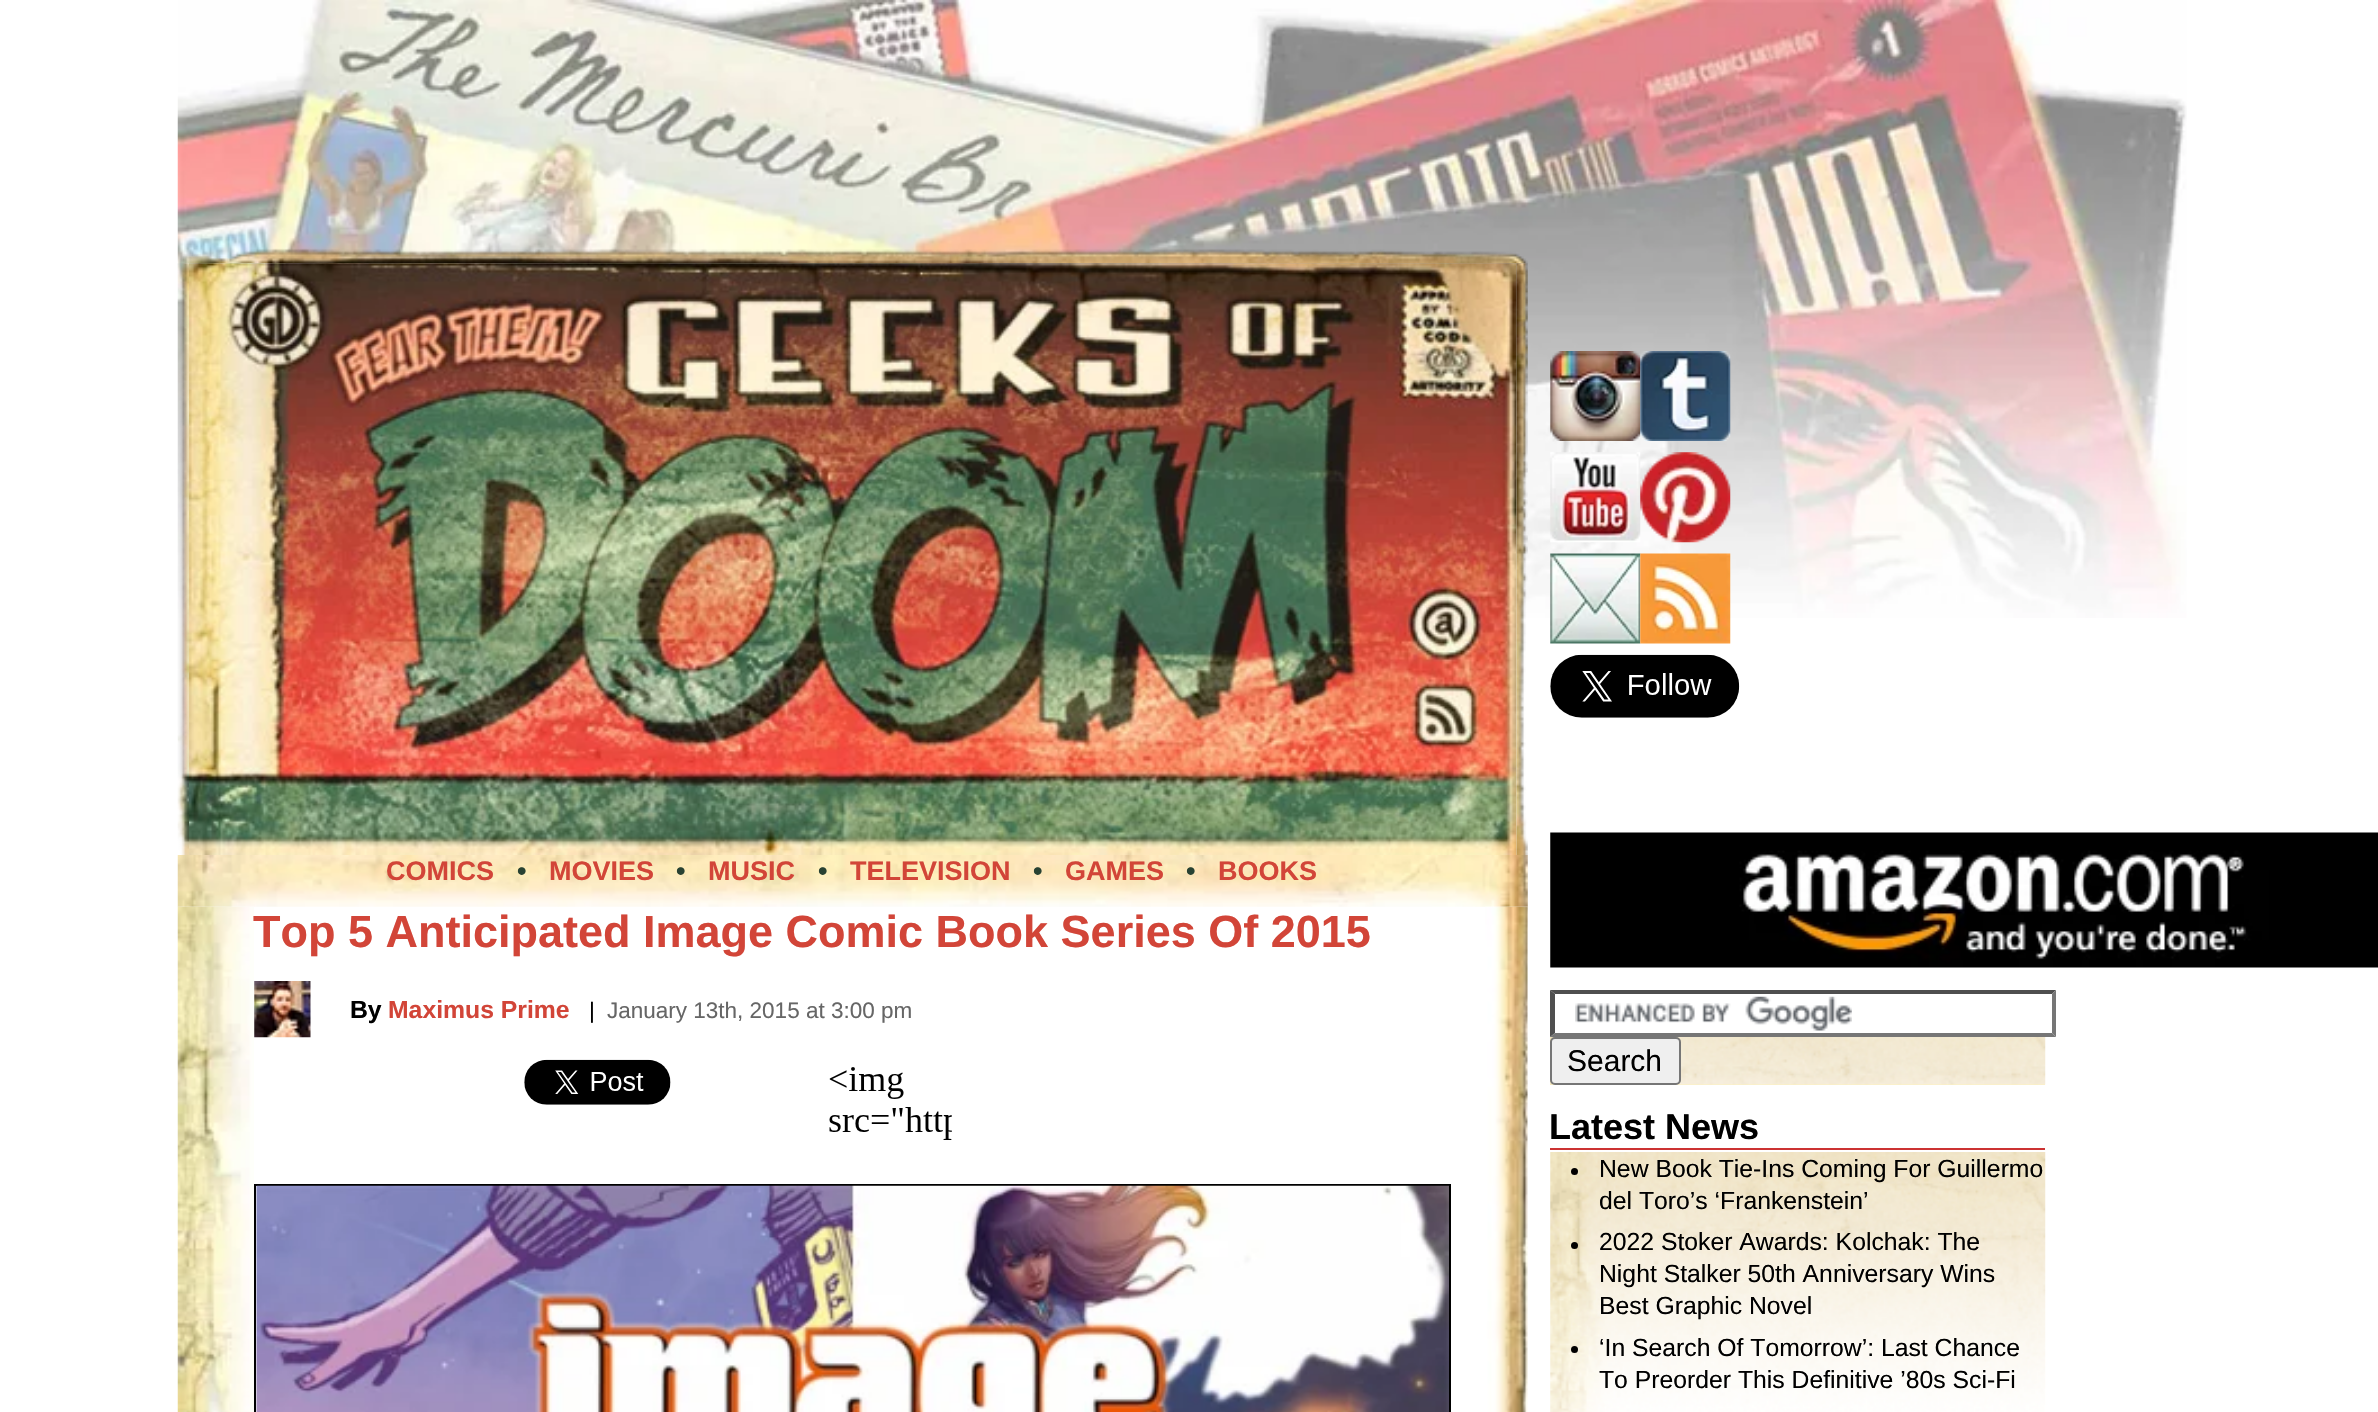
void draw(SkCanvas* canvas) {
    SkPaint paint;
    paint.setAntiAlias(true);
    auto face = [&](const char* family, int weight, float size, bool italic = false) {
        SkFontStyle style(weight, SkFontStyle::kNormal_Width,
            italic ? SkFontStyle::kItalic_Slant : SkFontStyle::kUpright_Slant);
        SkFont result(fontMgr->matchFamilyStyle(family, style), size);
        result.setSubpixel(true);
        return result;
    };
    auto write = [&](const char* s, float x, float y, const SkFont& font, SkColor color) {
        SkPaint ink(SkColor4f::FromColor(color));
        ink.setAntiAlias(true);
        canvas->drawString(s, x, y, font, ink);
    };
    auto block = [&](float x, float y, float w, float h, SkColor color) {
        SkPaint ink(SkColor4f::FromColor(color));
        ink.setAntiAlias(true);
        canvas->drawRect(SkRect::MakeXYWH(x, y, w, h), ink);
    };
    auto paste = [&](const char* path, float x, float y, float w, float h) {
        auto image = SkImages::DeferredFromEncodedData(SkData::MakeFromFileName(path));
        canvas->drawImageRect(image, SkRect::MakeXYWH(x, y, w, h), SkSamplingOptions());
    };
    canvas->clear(SK_ColorWHITE);
    paste("pic1.png", 177, 0, 2010, 618);
    paste("pic2.png", 178, 248, 1350, 16);
    paste("pic3.png", 177, 263, 12, 592);
    paste("pic4.png", 189, 263, 1328, 592);
    paste("pic5.png", 1516, 263, 12, 592);
    paste("pic6.png", 177, 855, 1351, 52);
    auto kFont1 = face("Liberation Sans", 700, 27);
    write("COMICS", 386, 880, kFont1, SkColorSetRGB(210, 69, 56));
    write("•", 517, 880, kFont1, SkColorSetRGB(40, 66, 50));
    write("MOVIES", 549, 880, kFont1, SkColorSetRGB(210, 69, 56));
    write("•", 676, 880, kFont1, SkColorSetRGB(40, 66, 50));
    write("MUSIC", 708, 880, kFont1, SkColorSetRGB(210, 69, 56));
    write("•", 818, 880, kFont1, SkColorSetRGB(40, 66, 50));
    write("TELEVISION", 850, 880, kFont1, SkColorSetRGB(210, 69, 56));
    write("•", 1033, 880, kFont1, SkColorSetRGB(40, 66, 50));
    write("GAMES", 1065, 880, kFont1, SkColorSetRGB(210, 69, 56));
    write("•", 1186, 880, kFont1, SkColorSetRGB(40, 66, 50));
    write("BOOKS", 1218, 880, kFont1, SkColorSetRGB(210, 69, 56));
    paste("pic7.png", 177, 906, 77, 506);
    auto kFont2 = face("Liberation Sans", 700, 45);
    write("Top 5 Anticipated Image Comic Book Series Of 2015", 253, 947, kFont2, SkColorSetRGB(210, 69, 56));
    paste("pic8.png", 254, 981, 57, 57);
    auto kFont3 = face("Liberation Sans", 700, 24.75f);
    write("By", 350, 1018, kFont3, SK_ColorBLACK);
    write("Maximus Prime", 388, 1018, kFont3, SkColorSetRGB(210, 69, 56));
    auto kFont4 = face("Liberation Sans", 400, 22.5f);
    write("|", 589, 1018, kFont4, SK_ColorBLACK);
    write("January 13th, 2015 at 3:00 pm", 607, 1018, kFont4, SkColorSetRGB(102, 102, 102));
    paste("pic9.png", 524, 1059, 147, 46);
    paste("pic10.png", 829, 1067, 123, 73);
    paint.setStyle(SkPaint::kStroke_Style);
    paint.setStrokeWidth(2);
    paint.setColor(SK_ColorBLACK);
    canvas->drawRect(SkRect::MakeXYWH(255, 1185, 1195, 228), paint);
    paste("pic11.png", 256, 1185, 1193, 227);
    paste("pic12.png", 1485, 906, 43, 506);
    paste("pic13.png", 1550, 351, 91, 90);
    paste("pic14.png", 1640, 351, 91, 90);
    paste("pic15.png", 1550, 452, 91, 91);
    paste("pic16.png", 1640, 452, 91, 91);
    paste("pic17.png", 1550, 553, 91, 91);
    paste("pic18.png", 1640, 553, 91, 91);
    paste("pic19.png", 1550, 654, 190, 64);
    paste("pic20.png", 1550, 832, 828, 136);
    block(1550, 1037, 495, 48, SkColorSetRGB(254, 243, 189));
    paste("pic21.png", 1550, 1037, 496, 48);
    paste("pic22.png", 1575, 996, 277, 35);
    paint.setStyle(SkPaint::kFill_Style);
    paint.setColor(SkColorSetRGB(79, 79, 79));
    canvas->drawPath(SkPathBuilder().moveTo(1550, 990).lineTo(2056, 990).lineTo(2052, 994).lineTo(1555, 994).close().detach(), paint);
    paint.setColor(SkColorSetRGB(118, 118, 118));
    canvas->drawPath(SkPathBuilder().moveTo(2056, 990).lineTo(2056, 1037).lineTo(2052, 1033).lineTo(2052, 994).close().detach(), paint);
    canvas->drawPath(SkPathBuilder().moveTo(2056, 1037).lineTo(1550, 1037).lineTo(1555, 1033).lineTo(2052, 1033).close().detach(), paint);
    paint.setColor(SkColorSetRGB(79, 79, 79));
    canvas->drawPath(SkPathBuilder().moveTo(1550, 1037).lineTo(1550, 990).lineTo(1555, 994).lineTo(1555, 1033).close().detach(), paint);
    paint.setColor(SkColorSetRGB(239, 239, 239));
    canvas->drawRoundRect(SkRect::MakeXYWH(1551, 1038, 129, 46), 4, 4, paint);
    paint.setStyle(SkPaint::kStroke_Style);
    paint.setColor(SkColorSetRGB(118, 118, 118));
    canvas->drawRoundRect(SkRect::MakeXYWH(1551, 1038, 129, 46), 4, 4, paint);
    auto kFont5 = face("Liberation Sans", 400, 30);
    write("Search", 1567, 1071, kFont5, SK_ColorBLACK);
    block(1550, 1148, 495, 2, SkColorSetRGB(204, 51, 51));
    auto kFont6 = face("Liberation Sans", 700, 36);
    write("Latest News", 1549, 1139, kFont6, SK_ColorBLACK);
    paste("pic23.png", 1550, 1152, 496, 260);
    paint.setStyle(SkPaint::kFill_Style);
    paint.setColor(SK_ColorBLACK);
    canvas->drawCircle(1574.5f, 1171.5f, 3.5f, paint);
    auto kFont7 = face("Liberation Sans", 400, 24.75f);
    write("New Book Tie-Ins Coming For Guillermo", 1599, 1177, kFont7, SK_ColorBLACK);
    write("del Toro’s ‘Frankenstein’", 1599, 1209, kFont7, SK_ColorBLACK);
    canvas->drawCircle(1574.5f, 1245.5f, 3.5f, paint);
    write("2022 Stoker Awards: Kolchak: The", 1599, 1250, kFont7, SK_ColorBLACK);
    write("Night Stalker 50th Anniversary Wins", 1599, 1282, kFont7, SK_ColorBLACK);
    write("Best Graphic Novel", 1599, 1314, kFont7, SK_ColorBLACK);
    canvas->drawCircle(1574.5f, 1349.5f, 3.5f, paint);
    write("‘In Search Of Tomorrow’: Last Chance", 1599, 1356, kFont7, SK_ColorBLACK);
    write("To Preorder This Definitive ’80s Sci-Fi", 1599, 1388, kFont7, SK_ColorBLACK);
}
